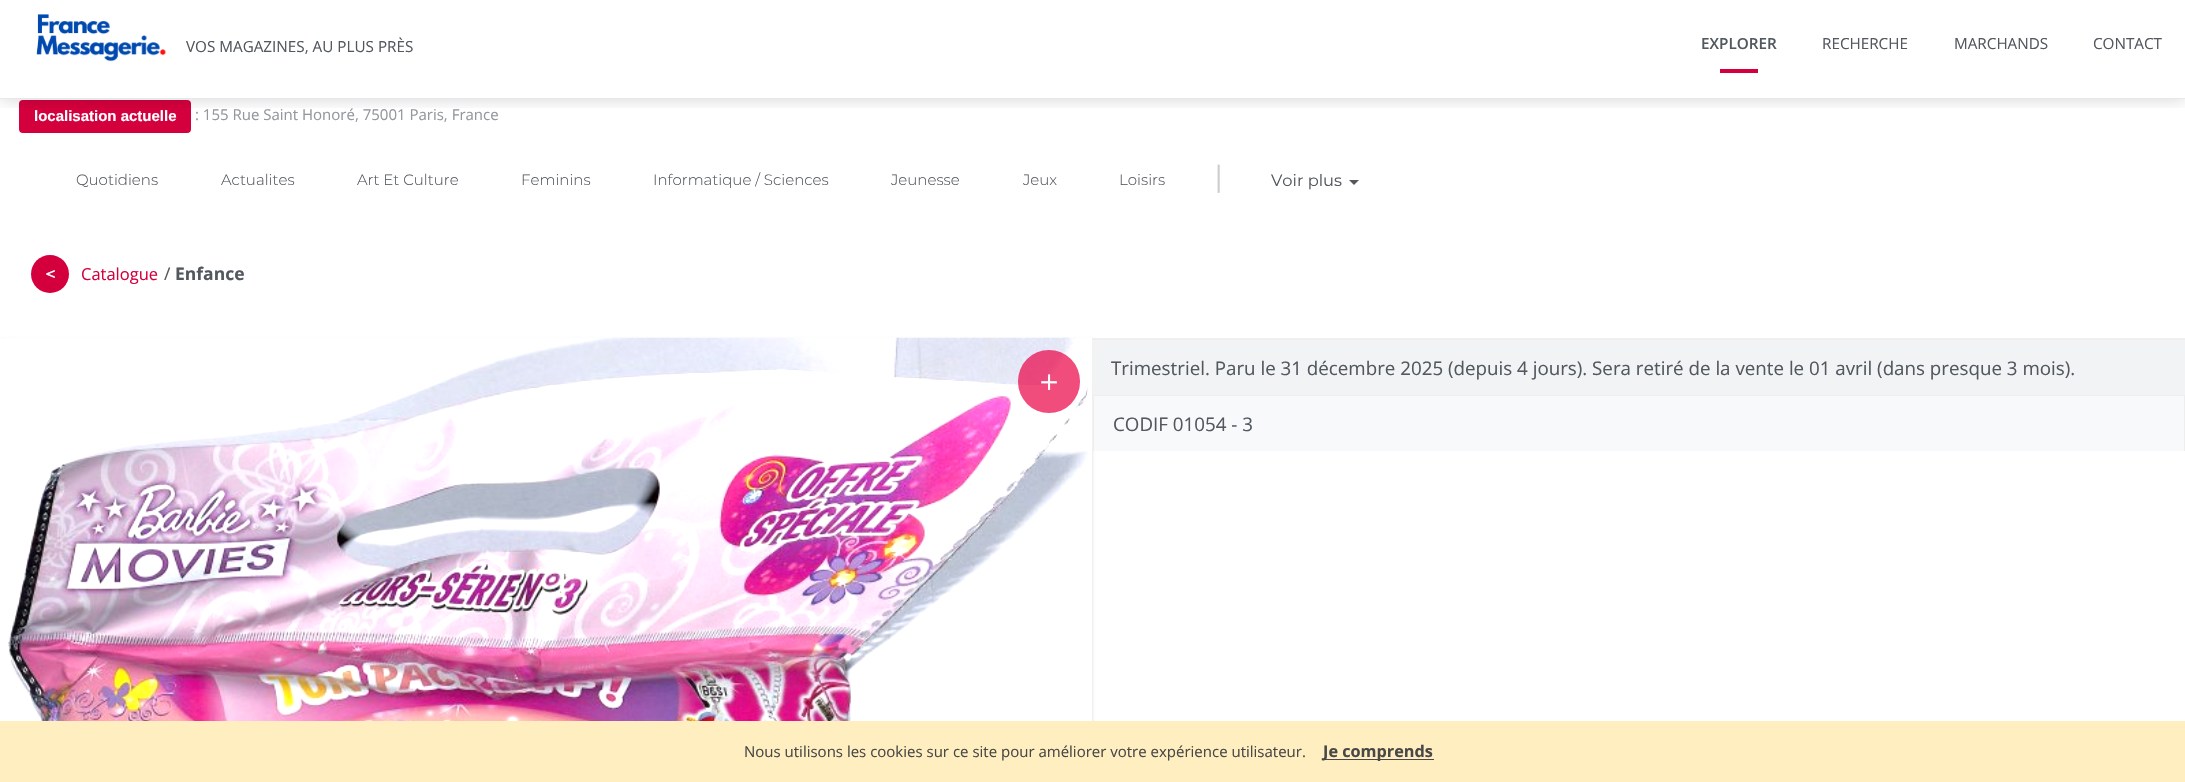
void draw(SkCanvas* canvas) {
    SkPaint paint;
    paint.setAntiAlias(true);
    auto face = [&](const char* family, int weight, float size, bool italic = false) {
        SkFontStyle style(weight, SkFontStyle::kNormal_Width,
            italic ? SkFontStyle::kItalic_Slant : SkFontStyle::kUpright_Slant);
        SkFont result(fontMgr->matchFamilyStyle(family, style), size);
        result.setSubpixel(true);
        return result;
    };
    auto write = [&](const char* s, float x, float y, const SkFont& font, SkColor color) {
        SkPaint ink(SkColor4f::FromColor(color));
        ink.setAntiAlias(true);
        canvas->drawString(s, x, y, font, ink);
    };
    auto block = [&](float x, float y, float w, float h, SkColor color) {
        SkPaint ink(SkColor4f::FromColor(color));
        ink.setAntiAlias(true);
        canvas->drawRect(SkRect::MakeXYWH(x, y, w, h), ink);
    };
    auto card = [&](float x, float y, float w, float h, float radius, SkColor color) {
        SkPaint ink(SkColor4f::FromColor(color));
        ink.setAntiAlias(true);
        canvas->drawRoundRect(SkRect::MakeXYWH(x, y, w, h), radius, radius, ink);
    };
    auto paste = [&](const char* path, float x, float y, float w, float h) {
        auto image = SkImages::DeferredFromEncodedData(SkData::MakeFromFileName(path));
        canvas->drawImageRect(image, SkRect::MakeXYWH(x, y, w, h), SkSamplingOptions());
    };
    canvas->clear(SK_ColorWHITE);
    card(19, 100, 172, 33, 4, SkColorSetRGB(212, 0, 62));
    canvas->save();
    canvas->clipRect(SkRect::MakeXYWH(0, 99, 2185, 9));
    paint.setColor(SkColorSetARGB(38, 0, 0, 0));
    paint.setMaskFilter(SkMaskFilter::MakeBlur(kNormal_SkBlurStyle, 7.5f));
    canvas->drawRect(SkRect::MakeXYWH(0, 1, 2185, 99), paint);
    paint.setMaskFilter(nullptr);
    canvas->restore();
    block(0, 98, 2185, 1, SkColorSetRGB(229, 233, 236));
    paste("pic1.png", 36, 14, 130, 48);
    auto kFont1 = face("Open Sans", 400, 15.25f);
    write("VOS MAGAZINES, AU PLUS PRÈS", 186, 52, kFont1, SkColorSetRGB(83, 88, 95));
    auto kFont2 = face("Open Sans", 600, 15.25f);
    write("EXPLORER", 1701, 49, kFont2, SkColorSetRGB(83, 88, 95));
    block(1720, 69, 38, 4, SkColorSetRGB(212, 0, 62));
    write("RECHERCHE", 1822, 49, kFont1, SkColorSetRGB(83, 88, 95));
    write("MARCHANDS", 1954, 49, kFont1, SkColorSetRGB(83, 88, 95));
    write("CONTACT", 2093, 49, kFont1, SkColorSetRGB(83, 88, 95));
    auto kFont3 = face("Liberation Sans", 700, 15);
    write("localisation actuelle", 34, 121, kFont3, SK_ColorWHITE);
    auto kFont4 = face("Open Sans", 400, 15);
    write(": 155 Rue Saint Honoré, 75001 Paris, France", 195, 120, kFont4, SkColorSetRGB(147, 152, 159));
    auto kFont5 = face("Montserrat", 300, 15);
    write("Quotidiens", 76, 185, kFont5, SkColorSetRGB(83, 88, 95));
    write("Actualites", 221, 185, kFont5, SkColorSetRGB(83, 88, 95));
    write("Art Et Culture", 357, 185, kFont5, SkColorSetRGB(83, 88, 95));
    write("Feminins", 521, 185, kFont5, SkColorSetRGB(83, 88, 95));
    write("Informatique / Sciences", 653, 185, kFont5, SkColorSetRGB(83, 88, 95));
    write("Jeunesse", 891, 185, kFont5, SkColorSetRGB(83, 88, 95));
    write("Jeux", 1023, 185, kFont5, SkColorSetRGB(83, 88, 95));
    write("Loisirs", 1119, 185, kFont5, SkColorSetRGB(83, 88, 95));
    auto kFont6 = face("Open Sans", 400, 28);
    write("|", 1211, 186, kFont6, SkColorSetRGB(204, 204, 204));
    auto kFont7 = face("Montserrat", 400, 16.25f);
    write("Voir plus", 1271, 186, kFont7, SkColorSetRGB(83, 88, 95));
    paint.setColor(SkColorSetRGB(83, 88, 95));
    canvas->drawPath(SkPathBuilder().moveTo(1349, 180).lineTo(1359, 180).lineTo(1354, 185).close().detach(), paint);
    paint.setColor(SkColorSetRGB(212, 0, 62));
    canvas->drawCircle(50, 274, 19, paint);
    auto kFont8 = face("WenQuanYi Zen Hei", 700, 16.5f);
    write("＜", 42, 279, kFont8, SK_ColorWHITE);
    auto kFont9 = face("Open Sans", 400, 16.5f);
    write("Catalogue", 81, 280, kFont9, SkColorSetRGB(212, 0, 62));
    auto kFont10 = face("Open Sans", 400, 17.5f);
    write("/", 164, 280, kFont10, SkColorSetRGB(83, 88, 95));
    auto kFont11 = face("Open Sans", 700, 17.5f);
    write("Enfance", 175, 280, kFont11, SkColorSetRGB(83, 88, 95));
    block(1093, 338, 1092, 1, SkColorSetRGB(238, 238, 238));
    paint.setColor(SkColorSetARGB(26, 0, 0, 0));
    paint.setMaskFilter(SkMaskFilter::MakeBlur(kNormal_SkBlurStyle, 1));
    canvas->drawRect(SkRect::MakeXYWH(0, 339, 1093, 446), paint);
    paint.setMaskFilter(nullptr);
    block(1092, 338, 1, 2, SkColorSetRGB(238, 238, 238));
    paste("pic2.png", 0, 337, 1093, 384);
    card(1018, 350, 62, 63, 31, SkColorSetARGB(179, 233, 0, 68));
    auto kFont12 = face("WenQuanYi Zen Hei", 500, 30);
    write("＋", 1034, 391, kFont12, SK_ColorWHITE);
    block(1093, 340, 1092, 55, SkColorSetRGB(241, 243, 245));
    block(1093, 339, 1092, 1, SkColorSetRGB(238, 238, 238));
    auto kFont13 = face("Open Sans", 400, 18.75f);
    write("Trimestriel. Paru le 31 décembre 2025 (depuis 4 jours). Sera retiré de la vente le 01 avril (dans presque 3 mois).", 1111, 375, kFont13, SkColorSetRGB(83, 88, 95));
    block(1094, 396, 1090, 55, SkColorSetRGB(247, 249, 251));
    block(1093, 395, 1092, 1, SkColorSetRGB(238, 238, 238));
    block(2184, 395, 1, 56, SkColorSetRGB(238, 238, 238));
    block(1093, 395, 1, 56, SkColorSetRGB(238, 238, 238));
    write("CODIF 01054 - 3", 1113, 431, kFont13, SkColorSetRGB(83, 88, 95));
    block(0, 721, 2185, 61, SkColorSetRGB(255, 238, 191));
    write("Nous utilisons les cookies sur ce site pour améliorer votre expérience utilisateur.", 744, 757, kFont4, SkColorSetRGB(72, 72, 72));
    block(1324, 759, 110, 1, SkColorSetRGB(72, 72, 72));
    auto kFont14 = face("Open Sans", 700, 16.25f);
    write("Je comprends", 1323, 757, kFont14, SkColorSetRGB(72, 72, 72));
}
